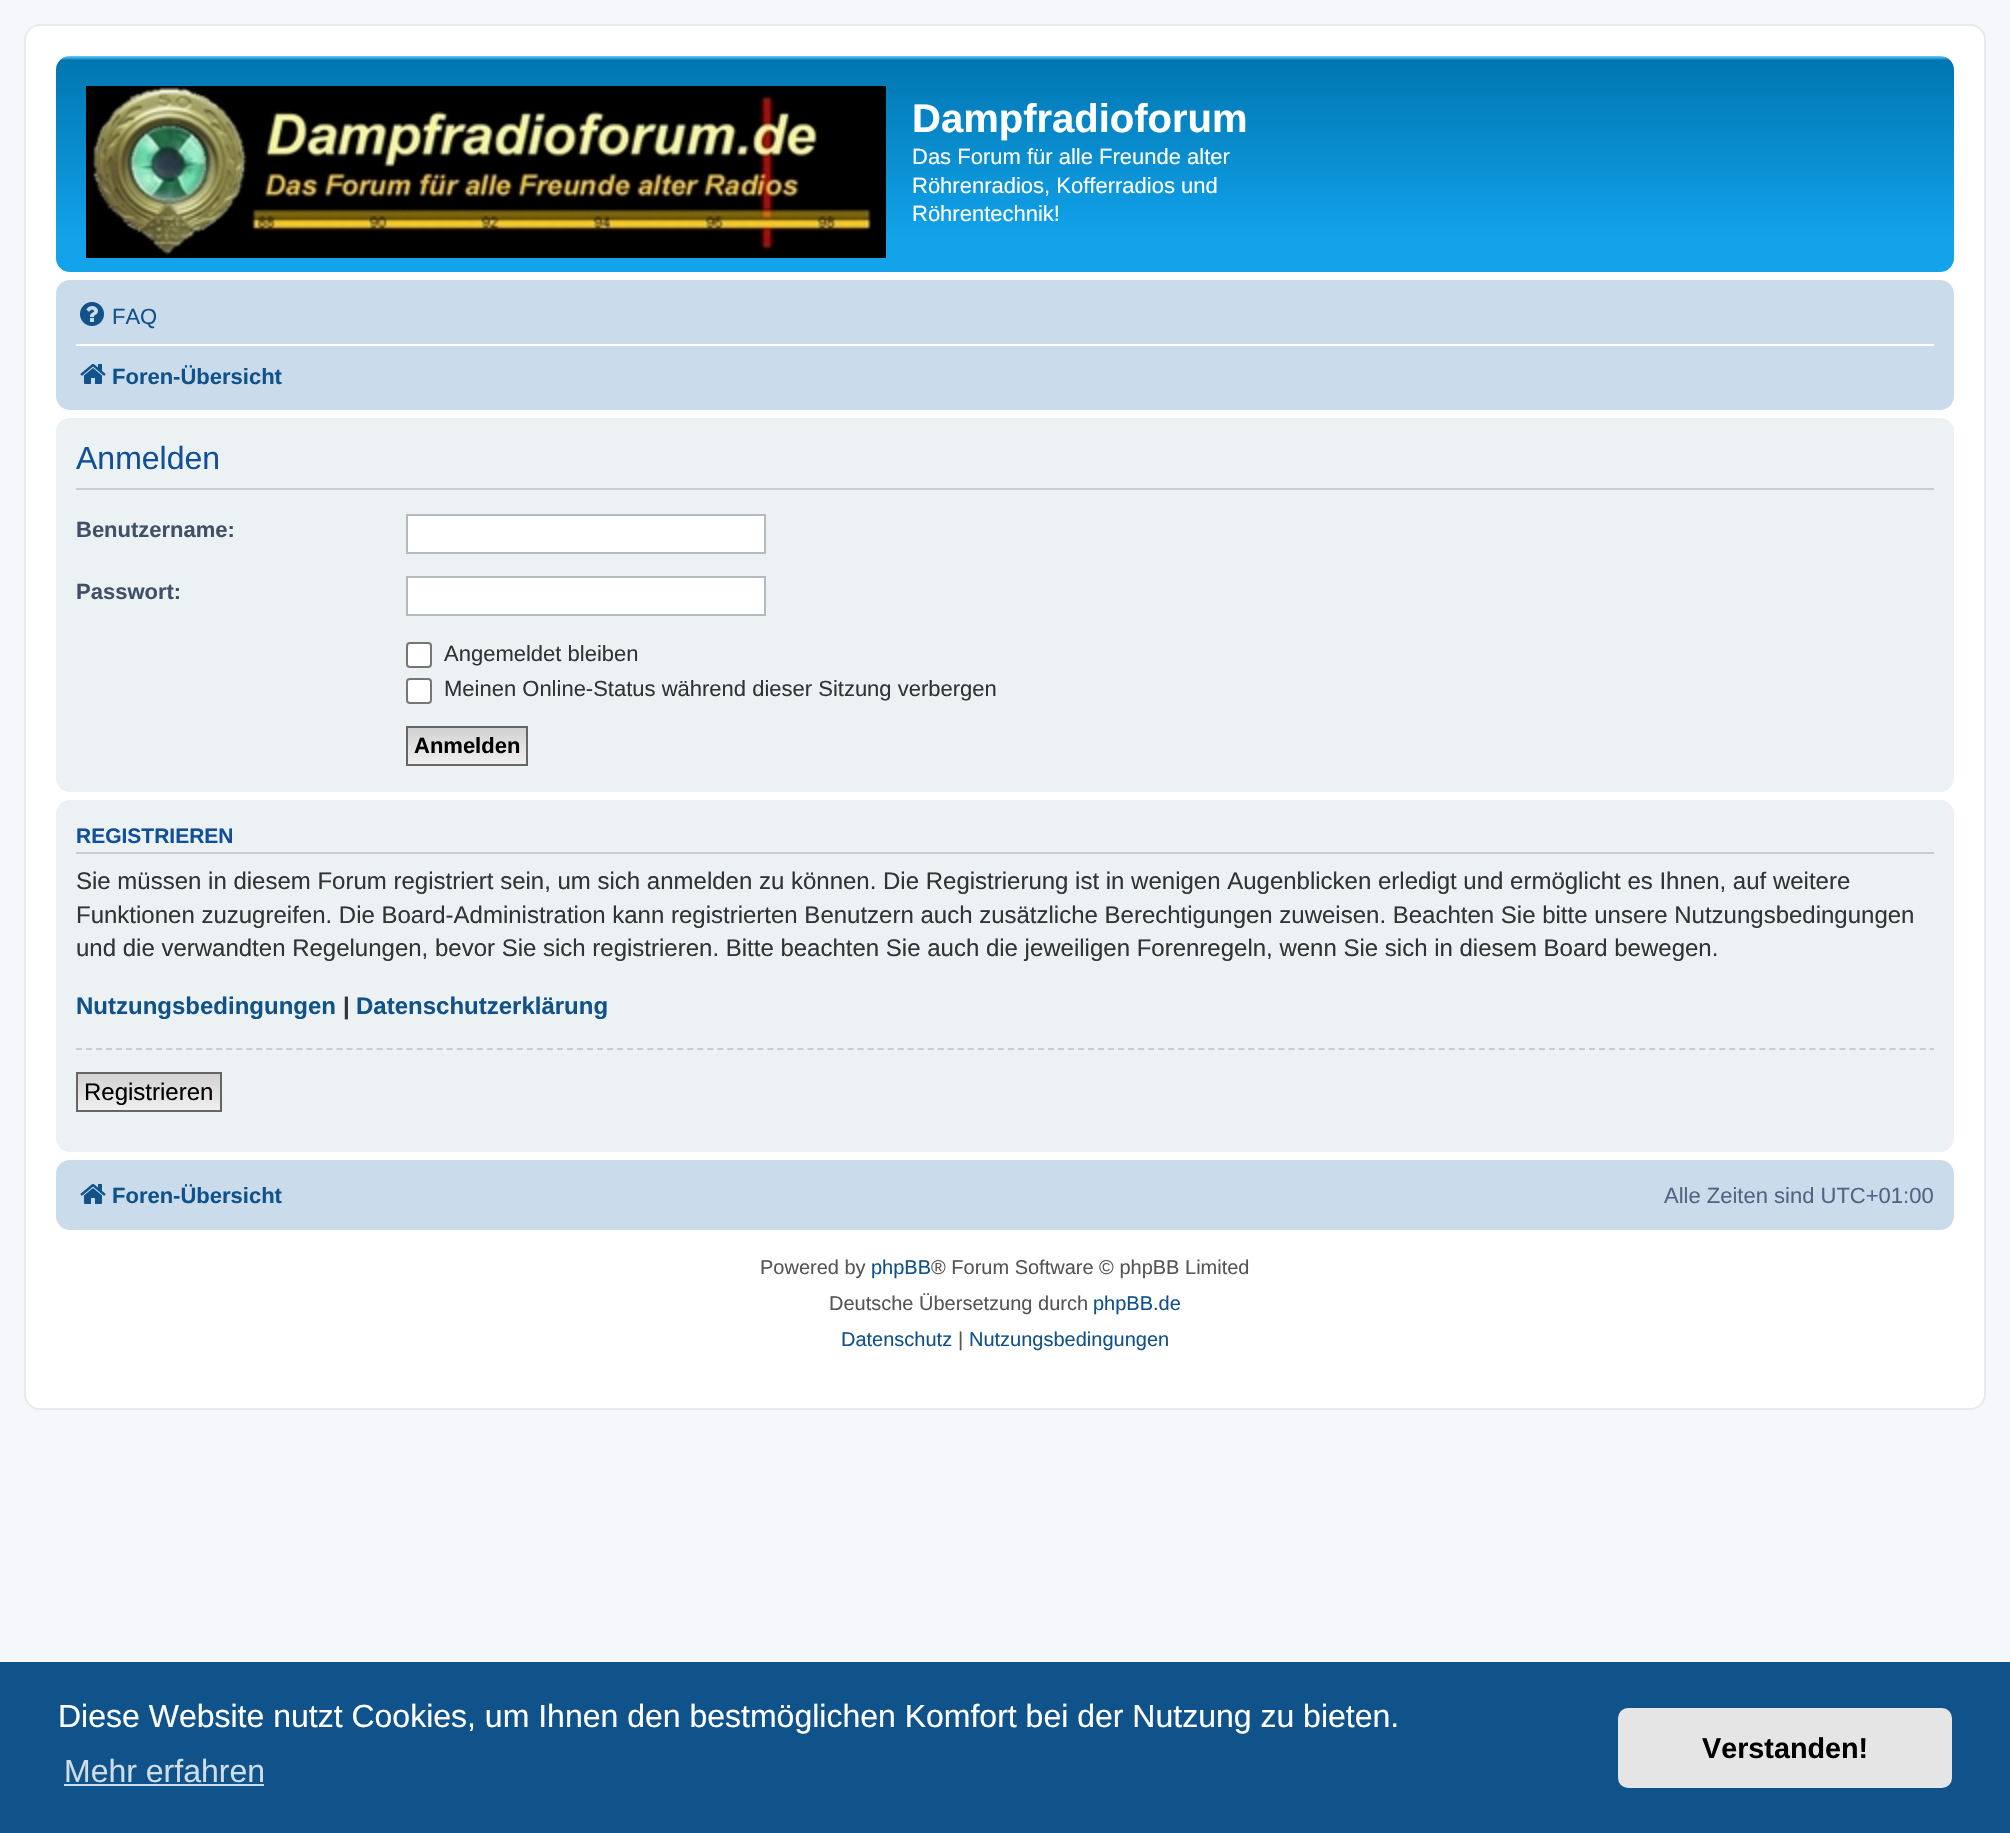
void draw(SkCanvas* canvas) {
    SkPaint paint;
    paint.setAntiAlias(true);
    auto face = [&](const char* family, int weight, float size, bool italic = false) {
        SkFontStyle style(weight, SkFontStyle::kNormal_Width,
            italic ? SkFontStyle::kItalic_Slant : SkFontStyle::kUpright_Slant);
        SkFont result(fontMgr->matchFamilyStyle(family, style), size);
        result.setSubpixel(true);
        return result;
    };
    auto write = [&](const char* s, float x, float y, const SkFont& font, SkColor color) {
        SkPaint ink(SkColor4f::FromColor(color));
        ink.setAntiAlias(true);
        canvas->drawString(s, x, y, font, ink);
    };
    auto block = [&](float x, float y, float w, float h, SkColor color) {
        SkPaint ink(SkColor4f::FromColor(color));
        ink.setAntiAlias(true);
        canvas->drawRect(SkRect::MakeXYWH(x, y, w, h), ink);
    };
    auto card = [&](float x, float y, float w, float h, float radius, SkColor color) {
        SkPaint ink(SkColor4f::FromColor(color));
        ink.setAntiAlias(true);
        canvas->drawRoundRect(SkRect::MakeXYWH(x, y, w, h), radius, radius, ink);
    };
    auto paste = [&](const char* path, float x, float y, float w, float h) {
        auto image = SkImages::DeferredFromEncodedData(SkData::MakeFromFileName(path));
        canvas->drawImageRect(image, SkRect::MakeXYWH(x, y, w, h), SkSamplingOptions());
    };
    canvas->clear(SkColorSetRGB(245, 247, 250));
    paint.setColor(SK_ColorWHITE);
    canvas->drawRoundRect(SkRect::MakeXYWH(25, 25, 1960, 1384), 15, 15, paint);
    paint.setStyle(SkPaint::kStroke_Style);
    paint.setStrokeWidth(2);
    paint.setColor(SkColorSetRGB(230, 233, 237));
    canvas->drawRoundRect(SkRect::MakeXYWH(25, 25, 1960, 1384), 15, 15, paint);
    paint.setStyle(SkPaint::kFill_Style);
    {
        const SkColor colors[] = {SkColorSetRGB(106, 206, 255), SkColorSetRGB(0, 118, 177), SkColorSetRGB(18, 163, 235), SkColorSetRGB(18, 163, 235)};
        const float stops[] = {0, 0.02f, 0.85f, 1};
        const SkPoint ends[] = {{1005, 56}, {1005, 272}};
        paint.setShader(SkGradientShader::MakeLinear(ends, colors, stops, 4, SkTileMode::kClamp));
        paint.setAlpha(255);
    }
    canvas->drawRoundRect(SkRect::MakeXYWH(56, 56, 1898, 216), 14, 14, paint);
    paste("pic1.png", 86, 86, 800, 172);
    auto kFont1 = face("Liberation Sans", 700, 40);
    write("Dampfradioforum", 912, 132, kFont1, SK_ColorWHITE);
    auto kFont2 = face("Liberation Sans", 400, 22);
    write("Das Forum für alle Freunde alter", 912, 164, kFont2, SK_ColorWHITE);
    write("Röhrenradios, Kofferradios und", 912, 193, kFont2, SK_ColorWHITE);
    write("Röhrentechnik!", 912, 221, kFont2, SK_ColorWHITE);
    card(56, 280, 1898, 130, 14, SkColorSetRGB(202, 220, 235));
    paste("pic2.png", 80, 302, 24, 24);
    write("FAQ", 112, 324, kFont2, SkColorSetRGB(16, 82, 137));
    block(76, 344, 1858, 2, SK_ColorWHITE);
    paste("pic3.png", 80, 364, 26, 20);
    auto kFont3 = face("Liberation Sans", 700, 22);
    write("Foren-Übersicht", 112, 384, kFont3, SkColorSetRGB(16, 82, 137));
    card(56, 418, 1898, 374, 14, SkColorSetRGB(236, 241, 243));
    block(76, 488, 1858, 2, SkColorSetRGB(204, 204, 204));
    auto kFont4 = face("Liberation Sans", 400, 32);
    write("Anmelden", 76, 469, kFont4, SkColorSetRGB(17, 80, 152));
    write("Benutzername:", 76, 537, kFont3, SkColorSetRGB(66, 80, 103));
    paint.setShader(nullptr);
    paint.setColor(SK_ColorWHITE);
    canvas->drawRect(SkRect::MakeXYWH(407, 515, 358, 38), paint);
    paint.setStyle(SkPaint::kStroke_Style);
    paint.setColor(SkColorSetRGB(180, 186, 192));
    canvas->drawRect(SkRect::MakeXYWH(407, 515, 358, 38), paint);
    write("Passwort:", 76, 599, kFont3, SkColorSetRGB(66, 80, 103));
    paint.setStyle(SkPaint::kFill_Style);
    paint.setColor(SK_ColorWHITE);
    canvas->drawRect(SkRect::MakeXYWH(407, 577, 358, 38), paint);
    paint.setStyle(SkPaint::kStroke_Style);
    paint.setColor(SkColorSetRGB(180, 186, 192));
    canvas->drawRect(SkRect::MakeXYWH(407, 577, 358, 38), paint);
    paint.setStyle(SkPaint::kFill_Style);
    paint.setColor(SK_ColorWHITE);
    canvas->drawRoundRect(SkRect::MakeXYWH(407, 643, 24, 24), 3, 3, paint);
    paint.setStyle(SkPaint::kStroke_Style);
    paint.setColor(SkColorSetRGB(118, 118, 118));
    canvas->drawRoundRect(SkRect::MakeXYWH(407, 643, 24, 24), 3, 3, paint);
    write("Angemeldet bleiben", 444, 661, kFont2, SkColorSetRGB(51, 51, 51));
    paint.setStyle(SkPaint::kFill_Style);
    paint.setColor(SK_ColorWHITE);
    canvas->drawRoundRect(SkRect::MakeXYWH(407, 679, 24, 24), 3, 3, paint);
    paint.setStyle(SkPaint::kStroke_Style);
    paint.setColor(SkColorSetRGB(118, 118, 118));
    canvas->drawRoundRect(SkRect::MakeXYWH(407, 679, 24, 24), 3, 3, paint);
    write("Meinen Online-Status während dieser Sitzung verbergen", 444, 696, kFont2, SkColorSetRGB(51, 51, 51));
    paint.setStyle(SkPaint::kFill_Style);
    {
        const SkColor colors[] = {SkColorSetRGB(210, 210, 210), SkColorSetRGB(239, 239, 239)};
        const float stops[] = {0, 1};
        const SkPoint ends[] = {{467, 728}, {467, 764}};
        paint.setShader(SkGradientShader::MakeLinear(ends, colors, stops, 2, SkTileMode::kClamp));
        paint.setAlpha(255);
    }
    canvas->drawRect(SkRect::MakeXYWH(408, 728, 118, 36), paint);
    paint.setStyle(SkPaint::kStroke_Style);
    paint.setShader(nullptr);
    paint.setColor(SkColorSetRGB(102, 102, 102));
    canvas->drawRect(SkRect::MakeXYWH(407, 727, 120, 38), paint);
    write("Anmelden", 414, 753, kFont3, SK_ColorBLACK);
    card(56, 800, 1898, 352, 14, SkColorSetRGB(236, 241, 243));
    block(76, 852, 1858, 2, SkColorSetRGB(204, 204, 204));
    auto kFont5 = face("Liberation Sans", 700, 21);
    write("REGISTRIEREN", 76, 843, kFont5, SkColorSetRGB(17, 80, 152));
    auto kFont6 = face("Liberation Sans", 400, 24);
    write("Sie müssen in diesem Forum registriert sein, um sich anmelden zu können. Die Registrierung ist in wenigen Augenblicken erledigt und ermöglicht es Ihnen, auf weitere", 76, 889, kFont6, SkColorSetRGB(51, 51, 51));
    write("Funktionen zuzugreifen. Die Board-Administration kann registrierten Benutzern auch zusätzliche Berechtigungen zuweisen. Beachten Sie bitte unsere Nutzungsbedingungen", 76, 923, kFont6, SkColorSetRGB(51, 51, 51));
    write("und die verwandten Regelungen, bevor Sie sich registrieren. Bitte beachten Sie auch die jeweiligen Forenregeln, wenn Sie sich in diesem Board bewegen.", 76, 956, kFont6, SkColorSetRGB(51, 51, 51));
    auto kFont7 = face("Liberation Sans", 700, 24);
    write("Nutzungsbedingungen", 76, 1014, kFont7, SkColorSetRGB(16, 82, 137));
    write("|", 343, 1014, kFont7, SkColorSetRGB(51, 51, 51));
    write("Datenschutzerklärung", 356, 1014, kFont7, SkColorSetRGB(16, 82, 137));
    paint.setColor(SkColorSetRGB(204, 204, 204));
    paint.setPathEffect(SkDashPathEffect::Make({{6, 4.02f}}, 0));
    canvas->drawPath(SkPathBuilder().moveTo(76, 1049).lineTo(1934, 1049).detach(), paint);
    paint.setPathEffect(nullptr);
    paint.setStyle(SkPaint::kFill_Style);
    {
        const SkColor colors[] = {SkColorSetRGB(210, 210, 210), SkColorSetRGB(239, 239, 239)};
        const float stops[] = {0, 1};
        const SkPoint ends[] = {{149, 1074}, {149, 1110}};
        paint.setShader(SkGradientShader::MakeLinear(ends, colors, stops, 2, SkTileMode::kClamp));
        paint.setAlpha(255);
    }
    canvas->drawRect(SkRect::MakeXYWH(78, 1074, 142, 36), paint);
    paint.setStyle(SkPaint::kStroke_Style);
    paint.setShader(nullptr);
    paint.setColor(SkColorSetRGB(102, 102, 102));
    canvas->drawRect(SkRect::MakeXYWH(77, 1073, 144, 38), paint);
    write("Registrieren", 84, 1100, kFont6, SK_ColorBLACK);
    card(56, 1160, 1898, 70, 14, SkColorSetRGB(202, 220, 235));
    paste("pic3.png", 80, 1184, 26, 20);
    write("Foren-Übersicht", 112, 1203, kFont3, SkColorSetRGB(16, 82, 137));
    write("Alle Zeiten sind UTC+01:00", 1664, 1203, kFont2, SkColorSetRGB(83, 100, 130));
    auto kFont8 = face("Liberation Sans", 400, 20);
    write("Powered by", 760, 1274, kFont8, SkColorSetRGB(85, 85, 85));
    write("phpBB", 871, 1274, kFont8, SkColorSetRGB(16, 82, 137));
    write("® Forum Software © phpBB Limited", 931, 1274, kFont8, SkColorSetRGB(85, 85, 85));
    write("Deutsche Übersetzung durch", 829, 1310, kFont8, SkColorSetRGB(85, 85, 85));
    write("phpBB.de", 1093, 1310, kFont8, SkColorSetRGB(16, 82, 137));
    write("Datenschutz", 841, 1346, kFont8, SkColorSetRGB(16, 82, 137));
    write("|", 958, 1346, kFont8, SkColorSetRGB(85, 85, 85));
    write("Nutzungsbedingungen", 969, 1346, kFont8, SkColorSetRGB(16, 82, 137));
    block(0, 1662, 2010, 171, SkColorSetRGB(15, 83, 138));
    write("Diese Website nutzt Cookies, um Ihnen den bestmöglichen Komfort bei der Nutzung zu bieten.", 58, 1727, kFont4, SK_ColorWHITE);
    write("Mehr erfahren", 64, 1782, kFont4, SkColorSetRGB(207, 221, 232));
    block(64, 1784, 200, 2, SkColorSetRGB(207, 221, 232));
    card(1618, 1708, 334, 80, 10, SkColorSetRGB(229, 229, 229));
    auto kFont9 = face("Liberation Sans", 700, 28.75f);
    write("Verstanden!", 1702, 1758, kFont9, SK_ColorBLACK);
}
